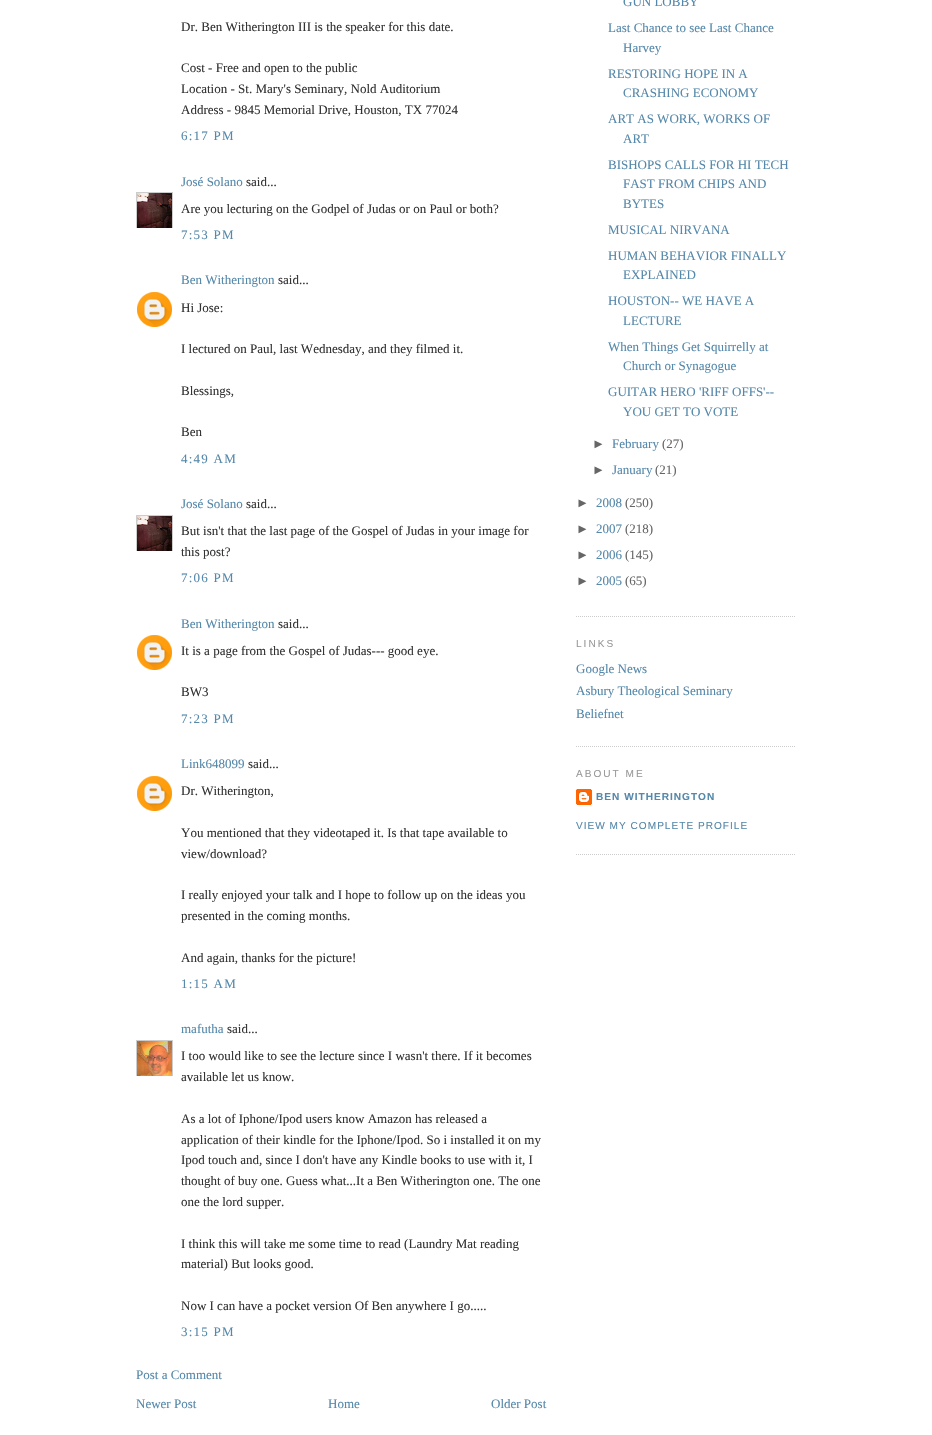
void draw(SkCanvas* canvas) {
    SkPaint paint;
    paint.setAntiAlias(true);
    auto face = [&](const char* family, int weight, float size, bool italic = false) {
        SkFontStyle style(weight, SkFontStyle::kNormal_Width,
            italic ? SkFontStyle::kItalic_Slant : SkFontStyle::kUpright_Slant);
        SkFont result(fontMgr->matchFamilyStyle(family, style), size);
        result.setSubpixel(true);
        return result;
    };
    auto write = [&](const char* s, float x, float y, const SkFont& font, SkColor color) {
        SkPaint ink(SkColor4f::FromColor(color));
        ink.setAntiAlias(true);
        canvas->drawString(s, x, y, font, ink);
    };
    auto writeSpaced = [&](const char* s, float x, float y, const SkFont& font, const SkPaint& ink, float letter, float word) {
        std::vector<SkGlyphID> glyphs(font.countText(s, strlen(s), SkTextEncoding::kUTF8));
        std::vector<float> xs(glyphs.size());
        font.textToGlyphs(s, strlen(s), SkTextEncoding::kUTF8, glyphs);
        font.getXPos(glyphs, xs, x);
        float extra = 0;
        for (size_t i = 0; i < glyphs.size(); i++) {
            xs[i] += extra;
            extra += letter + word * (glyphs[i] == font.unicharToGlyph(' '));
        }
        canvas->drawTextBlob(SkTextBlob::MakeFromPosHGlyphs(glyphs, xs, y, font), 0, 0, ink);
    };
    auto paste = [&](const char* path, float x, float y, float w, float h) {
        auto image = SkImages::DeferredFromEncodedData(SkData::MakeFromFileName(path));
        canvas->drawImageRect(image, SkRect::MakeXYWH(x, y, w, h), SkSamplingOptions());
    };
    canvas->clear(SK_ColorWHITE);
    auto kFont1 = face("Liberation Serif", 400, 13);
    write("Dr. Ben Witherington III is the speaker for this date.", 181, 31, kFont1, SkColorSetRGB(51, 51, 51));
    write("Cost - Free and open to the public", 181, 72, kFont1, SkColorSetRGB(51, 51, 51));
    write("Location - St. Mary's Seminary, Nold Auditorium", 181, 93, kFont1, SkColorSetRGB(51, 51, 51));
    write("Address - 9845 Memorial Drive, Houston, TX 77024", 181, 114, kFont1, SkColorSetRGB(51, 51, 51));
    paint.setColor(SkColorSetRGB(85, 136, 170));
    writeSpaced("6:17 PM", 181, 140, kFont1, paint, 1.25f, 0);
    write("José Solano", 181, 186, kFont1, SkColorSetRGB(85, 136, 170));
    write("said...", 246, 186, kFont1, SkColorSetRGB(51, 51, 51));
    canvas->save();
    canvas->clipRect(SkRect::MakeXYWH(136, 192, 37, 36));
    paint.setStyle(SkPaint::kStroke_Style);
    paint.setStrokeWidth(1);
    paint.setColor(SkColorSetRGB(204, 204, 204));
    canvas->drawRect(SkRect::MakeXYWH(136.5f, 192.5f, 36, 36), paint);
    canvas->restore();
    paste("pic1.png", 137, 193, 35, 35);
    write("Are you lecturing on the Godpel of Judas or on Paul or both?", 181, 213, kFont1, SkColorSetRGB(51, 51, 51));
    paint.setStyle(SkPaint::kFill_Style);
    paint.setColor(SkColorSetRGB(85, 136, 170));
    writeSpaced("7:53 PM", 181, 239, kFont1, paint, 1.25f, 0);
    write("Ben Witherington", 181, 284, kFont1, SkColorSetRGB(85, 136, 170));
    write("said...", 278, 284, kFont1, SkColorSetRGB(51, 51, 51));
    paste("pic2.png", 137, 292, 35, 35);
    write("Hi Jose:", 181, 312, kFont1, SkColorSetRGB(51, 51, 51));
    write("I lectured on Paul, last Wednesday, and they filmed it.", 181, 353, kFont1, SkColorSetRGB(51, 51, 51));
    write("Blessings,", 181, 395, kFont1, SkColorSetRGB(51, 51, 51));
    write("Ben", 181, 436, kFont1, SkColorSetRGB(51, 51, 51));
    writeSpaced("4:49 AM", 181, 463, kFont1, paint, 1.25f, 0);
    write("José Solano", 181, 508, kFont1, SkColorSetRGB(85, 136, 170));
    write("said...", 246, 508, kFont1, SkColorSetRGB(51, 51, 51));
    canvas->save();
    canvas->clipRect(SkRect::MakeXYWH(136, 515, 37, 36));
    paint.setStyle(SkPaint::kStroke_Style);
    paint.setColor(SkColorSetRGB(204, 204, 204));
    canvas->drawRect(SkRect::MakeXYWH(136.5f, 515.5f, 36, 36), paint);
    canvas->restore();
    paste("pic1.png", 137, 516, 35, 35);
    write("But isn't that the last page of the Gospel of Judas in your image for", 181, 535, kFont1, SkColorSetRGB(51, 51, 51));
    write("this post?", 181, 556, kFont1, SkColorSetRGB(51, 51, 51));
    paint.setStyle(SkPaint::kFill_Style);
    paint.setColor(SkColorSetRGB(85, 136, 170));
    writeSpaced("7:06 PM", 181, 582, kFont1, paint, 1.25f, 0);
    write("Ben Witherington", 181, 628, kFont1, SkColorSetRGB(85, 136, 170));
    write("said...", 278, 628, kFont1, SkColorSetRGB(51, 51, 51));
    paste("pic2.png", 137, 635, 35, 35);
    write("It is a page from the Gospel of Judas--- good eye.", 181, 655, kFont1, SkColorSetRGB(51, 51, 51));
    write("BW3", 181, 696, kFont1, SkColorSetRGB(51, 51, 51));
    writeSpaced("7:23 PM", 181, 723, kFont1, paint, 1.25f, 0);
    write("Link648099", 181, 768, kFont1, SkColorSetRGB(85, 136, 170));
    write("said...", 248, 768, kFont1, SkColorSetRGB(51, 51, 51));
    paste("pic2.png", 137, 776, 35, 35);
    write("Dr. Witherington,", 181, 795, kFont1, SkColorSetRGB(51, 51, 51));
    write("You mentioned that they videotaped it. Is that tape available to", 181, 837, kFont1, SkColorSetRGB(51, 51, 51));
    write("view/download?", 181, 858, kFont1, SkColorSetRGB(51, 51, 51));
    write("I really enjoyed your talk and I hope to follow up on the ideas you", 181, 899, kFont1, SkColorSetRGB(51, 51, 51));
    write("presented in the coming months.", 181, 920, kFont1, SkColorSetRGB(51, 51, 51));
    write("And again, thanks for the picture!", 181, 962, kFont1, SkColorSetRGB(51, 51, 51));
    writeSpaced("1:15 AM", 181, 988, kFont1, paint, 1.25f, 0);
    write("mafutha", 181, 1033, kFont1, SkColorSetRGB(85, 136, 170));
    write("said...", 227, 1033, kFont1, SkColorSetRGB(51, 51, 51));
    canvas->save();
    canvas->clipRect(SkRect::MakeXYWH(136, 1040, 37, 36));
    paint.setStyle(SkPaint::kStroke_Style);
    paint.setColor(SkColorSetRGB(204, 204, 204));
    canvas->drawRect(SkRect::MakeXYWH(136.5f, 1040.5f, 36, 36), paint);
    canvas->restore();
    paste("pic3.png", 137, 1041, 35, 35);
    write("I too would like to see the lecture since I wasn't there. If it becomes", 181, 1060, kFont1, SkColorSetRGB(51, 51, 51));
    write("available let us know.", 181, 1081, kFont1, SkColorSetRGB(51, 51, 51));
    write("As a lot of Iphone/Ipod users know Amazon has released a", 181, 1123, kFont1, SkColorSetRGB(51, 51, 51));
    write("application of their kindle for the Iphone/Ipod. So i installed it on my", 181, 1144, kFont1, SkColorSetRGB(51, 51, 51));
    write("Ipod touch and, since I don't have any Kindle books to use with it, I", 181, 1164, kFont1, SkColorSetRGB(51, 51, 51));
    write("thought of buy one. Guess what...It a Ben Witherington one. The one", 181, 1185, kFont1, SkColorSetRGB(51, 51, 51));
    write("one the lord supper.", 181, 1206, kFont1, SkColorSetRGB(51, 51, 51));
    write("I think this will take me some time to read (Laundry Mat reading", 181, 1248, kFont1, SkColorSetRGB(51, 51, 51));
    write("material) But looks good.", 181, 1268, kFont1, SkColorSetRGB(51, 51, 51));
    write("Now I can have a pocket version Of Ben anywhere I go.....", 181, 1310, kFont1, SkColorSetRGB(51, 51, 51));
    paint.setStyle(SkPaint::kFill_Style);
    paint.setColor(SkColorSetRGB(85, 136, 170));
    writeSpaced("3:15 PM", 181, 1336, kFont1, paint, 1.25f, 0);
    write("Post a Comment", 136, 1379, kFont1, SkColorSetRGB(85, 136, 170));
    write("Newer Post", 136, 1408, kFont1, SkColorSetRGB(85, 136, 170));
    write("Home", 328, 1408, kFont1, SkColorSetRGB(85, 136, 170));
    write("Older Post", 491, 1408, kFont1, SkColorSetRGB(85, 136, 170));
    paint.setStyle(SkPaint::kStroke_Style);
    paint.setColor(SkColorSetRGB(204, 204, 204));
    paint.setPathEffect(SkDashPathEffect::Make({{1, 1}}, 0));
    canvas->drawPath(SkPathBuilder().moveTo(576, 616.5f).lineTo(796, 616.5f).detach(), paint);
    paint.setPathEffect(nullptr);
    write("GUN LOBBY", 623, 6, kFont1, SkColorSetRGB(85, 136, 170));
    write("Last Chance to see Last Chance", 608, 32, kFont1, SkColorSetRGB(85, 136, 170));
    write("Harvey", 623, 52, kFont1, SkColorSetRGB(85, 136, 170));
    write("RESTORING HOPE IN A", 608, 78, kFont1, SkColorSetRGB(85, 136, 170));
    write("CRASHING ECONOMY", 623, 97, kFont1, SkColorSetRGB(85, 136, 170));
    write("ART AS WORK, WORKS OF", 608, 123, kFont1, SkColorSetRGB(85, 136, 170));
    write("ART", 623, 143, kFont1, SkColorSetRGB(85, 136, 170));
    write("BISHOPS CALLS FOR HI TECH", 608, 169, kFont1, SkColorSetRGB(85, 136, 170));
    write("FAST FROM CHIPS AND", 623, 188, kFont1, SkColorSetRGB(85, 136, 170));
    write("BYTES", 623, 208, kFont1, SkColorSetRGB(85, 136, 170));
    write("MUSICAL NIRVANA", 608, 234, kFont1, SkColorSetRGB(85, 136, 170));
    write("HUMAN BEHAVIOR FINALLY", 608, 260, kFont1, SkColorSetRGB(85, 136, 170));
    write("EXPLAINED", 623, 279, kFont1, SkColorSetRGB(85, 136, 170));
    write("HOUSTON-- WE HAVE A", 608, 305, kFont1, SkColorSetRGB(85, 136, 170));
    write("LECTURE", 623, 325, kFont1, SkColorSetRGB(85, 136, 170));
    write("When Things Get Squirrelly at", 608, 351, kFont1, SkColorSetRGB(85, 136, 170));
    write("Church or Synagogue", 623, 370, kFont1, SkColorSetRGB(85, 136, 170));
    write("GUITAR HERO 'RIFF OFFS'--", 608, 396, kFont1, SkColorSetRGB(85, 136, 170));
    write("YOU GET TO VOTE", 623, 416, kFont1, SkColorSetRGB(85, 136, 170));
    auto kFont2 = face("Liberation Sans", 400, 13);
    write("►", 592, 448, kFont2, SkColorSetRGB(102, 102, 102));
    write("February", 612, 448, kFont1, SkColorSetRGB(85, 136, 170));
    write("(27)", 662, 448, kFont1, SkColorSetRGB(102, 102, 102));
    write("►", 592, 474, kFont2, SkColorSetRGB(102, 102, 102));
    write("January", 612, 474, kFont1, SkColorSetRGB(85, 136, 170));
    write("(21)", 655, 474, kFont1, SkColorSetRGB(102, 102, 102));
    write("►", 576, 507, kFont2, SkColorSetRGB(102, 102, 102));
    write("2008", 596, 507, kFont1, SkColorSetRGB(85, 136, 170));
    write("(250)", 625, 507, kFont1, SkColorSetRGB(102, 102, 102));
    write("►", 576, 533, kFont2, SkColorSetRGB(102, 102, 102));
    write("2007", 596, 533, kFont1, SkColorSetRGB(85, 136, 170));
    write("(218)", 625, 533, kFont1, SkColorSetRGB(102, 102, 102));
    write("►", 576, 559, kFont2, SkColorSetRGB(102, 102, 102));
    write("2006", 596, 559, kFont1, SkColorSetRGB(85, 136, 170));
    write("(145)", 625, 559, kFont1, SkColorSetRGB(102, 102, 102));
    write("►", 576, 585, kFont2, SkColorSetRGB(102, 102, 102));
    write("2005", 596, 585, kFont1, SkColorSetRGB(85, 136, 170));
    write("(65)", 625, 585, kFont1, SkColorSetRGB(102, 102, 102));
    paint.setPathEffect(SkDashPathEffect::Make({{1, 1}}, 0));
    canvas->drawPath(SkPathBuilder().moveTo(576, 746.5f).lineTo(796, 746.5f).detach(), paint);
    paint.setPathEffect(nullptr);
    auto kFont3 = face("Liberation Sans", 400, 10.1f);
    paint.setStyle(SkPaint::kFill_Style);
    paint.setColor(SkColorSetRGB(153, 153, 153));
    writeSpaced("LINKS", 576, 647, kFont3, paint, 2, 0);
    write("Google News", 576, 673, kFont1, SkColorSetRGB(85, 136, 170));
    write("Asbury Theological Seminary", 576, 695, kFont1, SkColorSetRGB(85, 136, 170));
    write("Beliefnet", 576, 718, kFont1, SkColorSetRGB(85, 136, 170));
    paint.setStyle(SkPaint::kStroke_Style);
    paint.setColor(SkColorSetRGB(204, 204, 204));
    paint.setPathEffect(SkDashPathEffect::Make({{1, 1}}, 0));
    canvas->drawPath(SkPathBuilder().moveTo(576, 854.5f).lineTo(796, 854.5f).detach(), paint);
    paint.setPathEffect(nullptr);
    paint.setStyle(SkPaint::kFill_Style);
    paint.setColor(SkColorSetRGB(153, 153, 153));
    writeSpaced("ABOUT ME", 576, 777, kFont3, paint, 2, 0);
    paste("pic4.png", 576, 789, 16, 16);
    auto kFont4 = face("Liberation Sans", 700, 10.1f);
    paint.setColor(SkColorSetRGB(85, 136, 170));
    writeSpaced("BEN WITHERINGTON", 596, 800, kFont4, paint, 1, 0);
    writeSpaced("VIEW MY COMPLETE PROFILE", 576, 829, kFont3, paint, 1, 0);
}
